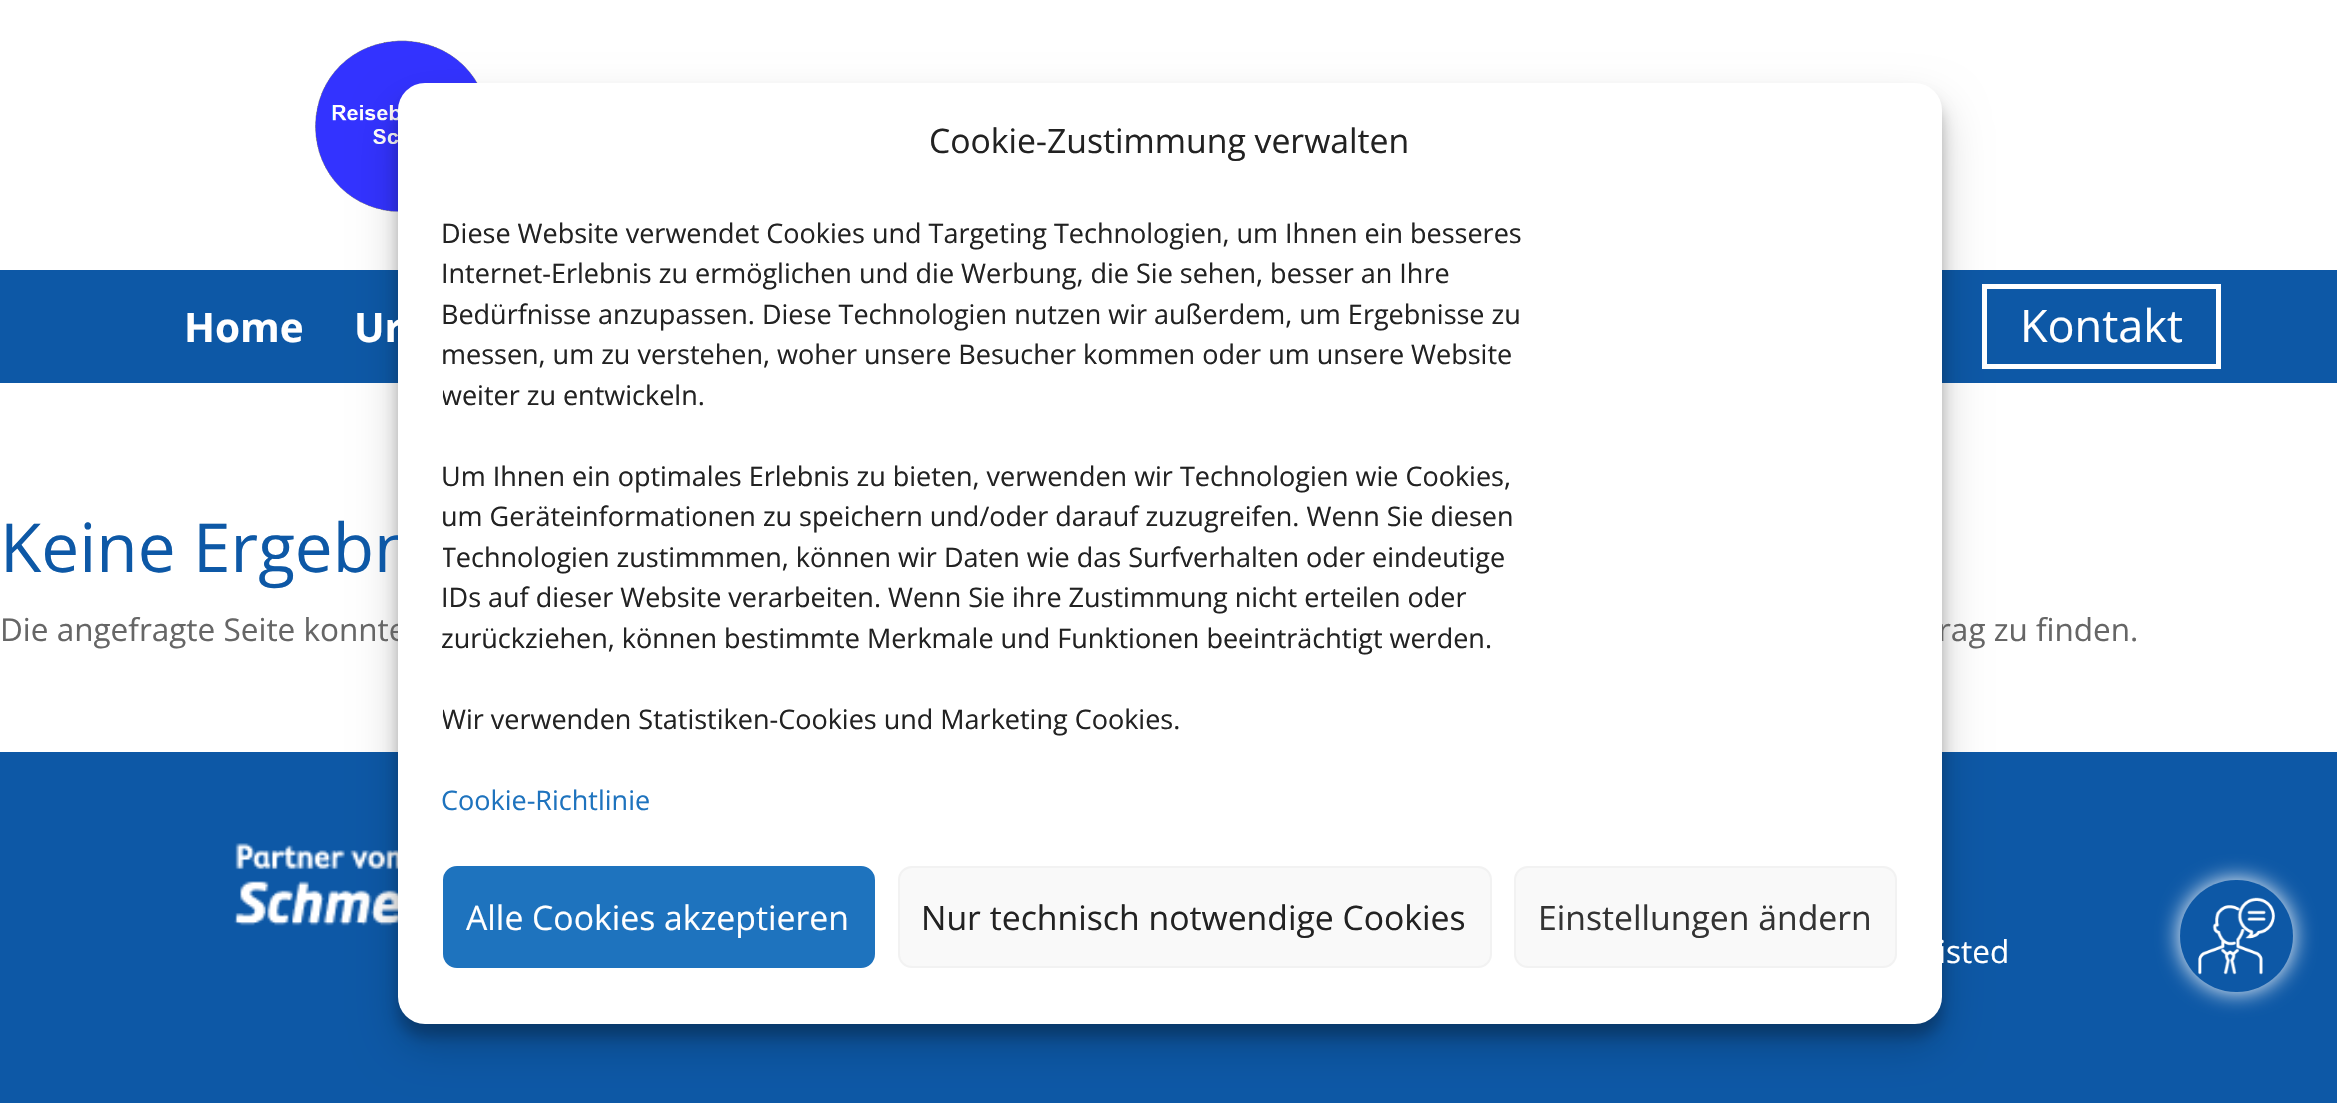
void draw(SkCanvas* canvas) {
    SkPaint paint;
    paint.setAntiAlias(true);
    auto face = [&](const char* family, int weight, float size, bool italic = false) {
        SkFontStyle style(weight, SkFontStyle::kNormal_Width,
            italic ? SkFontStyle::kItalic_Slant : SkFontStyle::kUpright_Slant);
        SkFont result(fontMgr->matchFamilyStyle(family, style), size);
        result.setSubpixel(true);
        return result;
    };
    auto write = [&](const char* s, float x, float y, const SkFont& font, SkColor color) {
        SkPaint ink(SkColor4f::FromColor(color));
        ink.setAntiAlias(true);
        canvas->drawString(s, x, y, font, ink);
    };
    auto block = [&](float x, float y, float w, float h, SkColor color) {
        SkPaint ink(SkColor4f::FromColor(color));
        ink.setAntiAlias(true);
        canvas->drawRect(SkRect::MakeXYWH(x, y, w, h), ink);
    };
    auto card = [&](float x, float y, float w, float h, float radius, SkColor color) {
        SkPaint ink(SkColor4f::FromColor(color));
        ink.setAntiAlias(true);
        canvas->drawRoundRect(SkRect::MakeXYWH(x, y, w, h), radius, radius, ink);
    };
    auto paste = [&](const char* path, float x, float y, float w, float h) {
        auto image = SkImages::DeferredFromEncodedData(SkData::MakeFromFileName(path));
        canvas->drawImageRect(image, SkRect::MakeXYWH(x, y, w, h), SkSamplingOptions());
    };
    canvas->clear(SK_ColorWHITE);
    paste("pic1.png", 315, 40, 163, 172);
    block(0, 270, 2337, 113, SkColorSetRGB(13, 88, 166));
    block(0, 752, 2337, 351, SkColorSetRGB(13, 88, 166));
    paste("pic2.png", 234, 843, 164, 83);
    paint.setColor(SkColorSetARGB(59, 0, 0, 0));
    paint.setMaskFilter(SkMaskFilter::MakeBlur(kNormal_SkBlurStyle, 7));
    canvas->drawRoundRect(SkRect::MakeXYWH(398, 97, 1544, 940), 27, 27, paint);
    paint.setMaskFilter(nullptr);
    paint.setStyle(SkPaint::kStroke_Style);
    paint.setStrokeWidth(5);
    paint.setColor(SK_ColorWHITE);
    canvas->drawRect(SkRect::MakeXYWH(1984.5f, 286.5f, 234, 80), paint);
    paint.setStyle(SkPaint::kFill_Style);
    paint.setColor(SkColorSetARGB(48, 0, 0, 0));
    paint.setMaskFilter(SkMaskFilter::MakeBlur(kNormal_SkBlurStyle, 22.5f));
    canvas->drawRoundRect(SkRect::MakeXYWH(398, 106, 1544, 940), 27, 27, paint);
    paint.setMaskFilter(nullptr);
    auto kFont1 = face("Open Sans", 400, 67.5f);
    write("Keine Ergebn", 0, 572, kFont1, SkColorSetRGB(13, 88, 166));
    auto kFont2 = face("Open Sans", 400, 31.5f);
    write("Die angefragte Seite konnte", 0, 641, kFont2, SkColorSetRGB(102, 102, 102));
    write("rag zu finden.", 1938, 641, kFont2, SkColorSetRGB(102, 102, 102));
    card(398, 83, 1544, 941, 27, SK_ColorWHITE);
    auto kFont3 = face("Open Sans", 400, 33.75f);
    write("Cookie-Zustimmung verwalten", 929, 153, kFont3, SkColorSetRGB(34, 34, 34));
    auto kFont4 = face("Open Sans", 400, 27);
    write("Diese Website verwendet Cookies und Targeting Technologien, um Ihnen ein besseres", 441, 243, kFont4, SkColorSetRGB(34, 34, 34));
    write("Internet-Erlebnis zu ermöglichen und die Werbung, die Sie sehen, besser an Ihre", 441, 283, kFont4, SkColorSetRGB(34, 34, 34));
    write("Bedürfnisse anzupassen. Diese Technologien nutzen wir außerdem, um Ergebnisse zu", 441, 324, kFont4, SkColorSetRGB(34, 34, 34));
    write("messen, um zu verstehen, woher unsere Besucher kommen oder um unsere Website", 441, 364, kFont4, SkColorSetRGB(34, 34, 34));
    canvas->save();
    canvas->clipRect(SkRect::MakeXYWH(443, 214, 1454, 607));
    write("weiter zu entwickeln.", 441, 405, kFont4, SkColorSetRGB(34, 34, 34));
    canvas->restore();
    write("Um Ihnen ein optimales Erlebnis zu bieten, verwenden wir Technologien wie Cookies,", 441, 486, kFont4, SkColorSetRGB(34, 34, 34));
    write("um Geräteinformationen zu speichern und/oder darauf zuzugreifen. Wenn Sie diesen", 441, 526, kFont4, SkColorSetRGB(34, 34, 34));
    canvas->save();
    canvas->clipRect(SkRect::MakeXYWH(443, 214, 1454, 607));
    write("Technologien zustimmmen, können wir Daten wie das Surfverhalten oder eindeutige", 441, 567, kFont4, SkColorSetRGB(34, 34, 34));
    canvas->restore();
    write("IDs auf dieser Website verarbeiten. Wenn Sie ihre Zustimmung nicht erteilen oder", 441, 607, kFont4, SkColorSetRGB(34, 34, 34));
    write("zurückziehen, können bestimmte Merkmale und Funktionen beeinträchtigt werden.", 441, 648, kFont4, SkColorSetRGB(34, 34, 34));
    canvas->save();
    canvas->clipRect(SkRect::MakeXYWH(443, 214, 1454, 607));
    write("Wir verwenden Statistiken-Cookies und Marketing Cookies.", 441, 729, kFont4, SkColorSetRGB(34, 34, 34));
    canvas->restore();
    write("Cookie-Richtlinie", 441, 810, kFont4, SkColorSetRGB(30, 115, 190));
    paint.setColor(SkColorSetRGB(30, 115, 190));
    canvas->drawRoundRect(SkRect::MakeXYWH(444, 867, 430, 100), 13, 13, paint);
    paint.setStyle(SkPaint::kStroke_Style);
    paint.setStrokeWidth(2);
    canvas->drawRoundRect(SkRect::MakeXYWH(444, 867, 430, 100), 13, 13, paint);
    write("Alle Cookies akzeptieren", 466, 930, kFont3, SK_ColorWHITE);
    paint.setStyle(SkPaint::kFill_Style);
    paint.setColor(SkColorSetRGB(249, 249, 249));
    canvas->drawRoundRect(SkRect::MakeXYWH(899, 867, 592, 100), 13, 13, paint);
    paint.setStyle(SkPaint::kStroke_Style);
    paint.setColor(SkColorSetRGB(242, 242, 242));
    canvas->drawRoundRect(SkRect::MakeXYWH(899, 867, 592, 100), 13, 13, paint);
    write("Nur technisch notwendige Cookies", 921, 930, kFont3, SkColorSetRGB(34, 34, 34));
    paint.setStyle(SkPaint::kFill_Style);
    paint.setColor(SkColorSetRGB(249, 249, 249));
    canvas->drawRoundRect(SkRect::MakeXYWH(1515, 867, 381, 100), 13, 13, paint);
    paint.setStyle(SkPaint::kStroke_Style);
    paint.setColor(SkColorSetRGB(242, 242, 242));
    canvas->drawRoundRect(SkRect::MakeXYWH(1515, 867, 381, 100), 13, 13, paint);
    write("Einstellungen ändern", 1538, 930, kFont3, SkColorSetRGB(51, 51, 51));
    auto kFont5 = face("Open Sans", 700, 40.5f);
    write("Home", 184, 342, kFont5, SK_ColorWHITE);
    write("Ur", 354, 342, kFont5, SK_ColorWHITE);
    auto kFont6 = face("Open Sans", 400, 45);
    write("Kontakt", 2020, 342, kFont6, SK_ColorWHITE);
    write("isted", 1938, 963, kFont2, SK_ColorWHITE);
    paint.setStyle(SkPaint::kFill_Style);
    paint.setColor(SK_ColorWHITE);
    paint.setMaskFilter(SkMaskFilter::MakeBlur(kNormal_SkBlurStyle, 11));
    canvas->drawRoundRect(SkRect::MakeXYWH(2180, 880, 113, 112), 56, 56, paint);
    paint.setMaskFilter(nullptr);
    card(2180, 880, 113, 112, 56, SkColorSetRGB(13, 88, 166));
    paste("pic3.png", 2198, 897, 77, 78);
}
